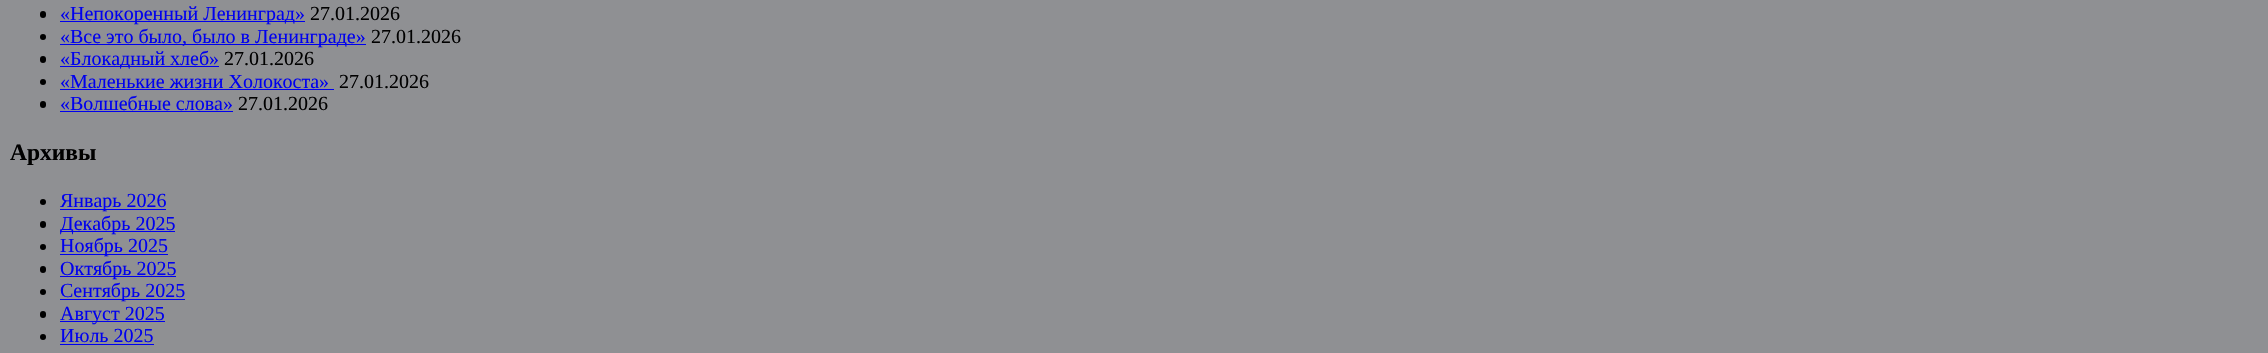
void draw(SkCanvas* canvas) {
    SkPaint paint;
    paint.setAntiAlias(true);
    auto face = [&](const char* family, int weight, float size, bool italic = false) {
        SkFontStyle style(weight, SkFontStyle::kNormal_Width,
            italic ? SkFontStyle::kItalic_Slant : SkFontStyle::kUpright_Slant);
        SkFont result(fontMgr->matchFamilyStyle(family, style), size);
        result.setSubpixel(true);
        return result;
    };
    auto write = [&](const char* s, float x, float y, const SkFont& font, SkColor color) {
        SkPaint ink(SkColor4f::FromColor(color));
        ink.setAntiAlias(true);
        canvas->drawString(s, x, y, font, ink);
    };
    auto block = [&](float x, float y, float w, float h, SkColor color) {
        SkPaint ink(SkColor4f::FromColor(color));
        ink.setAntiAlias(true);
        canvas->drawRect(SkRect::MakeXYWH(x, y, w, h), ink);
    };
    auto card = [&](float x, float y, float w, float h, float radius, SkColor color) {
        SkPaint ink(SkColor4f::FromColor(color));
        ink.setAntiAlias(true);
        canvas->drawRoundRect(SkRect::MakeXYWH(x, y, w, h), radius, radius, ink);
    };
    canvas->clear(SkColorSetRGB(143, 144, 147));
    card(40, 11, 6, 7, 3, SK_ColorBLACK);
    block(60, 21, 245, 1, SkColorSetRGB(0, 0, 238));
    auto kFont1 = face("Liberation Serif", 400, 20);
    write("«Непокоренный Ленинград»", 60, 20, kFont1, SkColorSetRGB(0, 0, 238));
    write("27.01.2026", 310, 20, kFont1, SK_ColorBLACK);
    paint.setColor(SK_ColorBLACK);
    canvas->drawCircle(43, 37, 3, paint);
    block(60, 44, 306, 1, SkColorSetRGB(0, 0, 238));
    write("«Все это было, было в Ленинграде»", 60, 43, kFont1, SkColorSetRGB(0, 0, 238));
    write("27.01.2026", 371, 43, kFont1, SK_ColorBLACK);
    card(40, 56, 6, 7, 3, SK_ColorBLACK);
    block(60, 66, 159, 1, SkColorSetRGB(0, 0, 238));
    write("«Блокадный хлеб»", 60, 65, kFont1, SkColorSetRGB(0, 0, 238));
    write("27.01.2026", 224, 65, kFont1, SK_ColorBLACK);
    canvas->drawCircle(43, 82, 3, paint);
    write("«Маленькие жизни Холокоста»", 60, 88, kFont1, SkColorSetRGB(0, 0, 238));
    block(60, 89, 274, 1, SkColorSetRGB(0, 0, 238));
    write("27.01.2026", 339, 88, kFont1, SK_ColorBLACK);
    card(40, 101, 6, 7, 3, SK_ColorBLACK);
    write("«Волшебные слова»", 60, 110, kFont1, SkColorSetRGB(0, 0, 238));
    block(60, 111, 173, 1, SkColorSetRGB(0, 0, 238));
    write("27.01.2026", 238, 110, kFont1, SK_ColorBLACK);
    auto kFont2 = face("Liberation Serif", 700, 23.5f);
    write("Архивы", 10, 160, kFont2, SK_ColorBLACK);
    canvas->drawCircle(43, 202, 3, paint);
    block(60, 209, 106, 1, SkColorSetRGB(0, 0, 238));
    write("Январь 2026", 60, 207, kFont1, SkColorSetRGB(0, 0, 238));
    card(40, 221, 6, 7, 3, SK_ColorBLACK);
    block(60, 231, 115, 1, SkColorSetRGB(0, 0, 238));
    write("Декабрь 2025", 60, 230, kFont1, SkColorSetRGB(0, 0, 238));
    canvas->drawCircle(43, 247, 3, paint);
    block(60, 254, 108, 1, SkColorSetRGB(0, 0, 238));
    write("Ноябрь 2025", 60, 252, kFont1, SkColorSetRGB(0, 0, 238));
    card(40, 266, 6, 7, 3, SK_ColorBLACK);
    block(60, 276, 116, 1, SkColorSetRGB(0, 0, 238));
    write("Октябрь 2025", 60, 275, kFont1, SkColorSetRGB(0, 0, 238));
    canvas->drawCircle(43, 292, 3, paint);
    block(60, 299, 125, 1, SkColorSetRGB(0, 0, 238));
    write("Сентябрь 2025", 60, 297, kFont1, SkColorSetRGB(0, 0, 238));
    card(40, 311, 6, 7, 3, SK_ColorBLACK);
    block(60, 321, 105, 1, SkColorSetRGB(0, 0, 238));
    write("Август 2025", 60, 320, kFont1, SkColorSetRGB(0, 0, 238));
    canvas->drawCircle(43, 337, 3, paint);
    write("Июль 2025", 60, 342, kFont1, SkColorSetRGB(0, 0, 238));
    block(60, 344, 94, 1, SkColorSetRGB(0, 0, 238));
}
